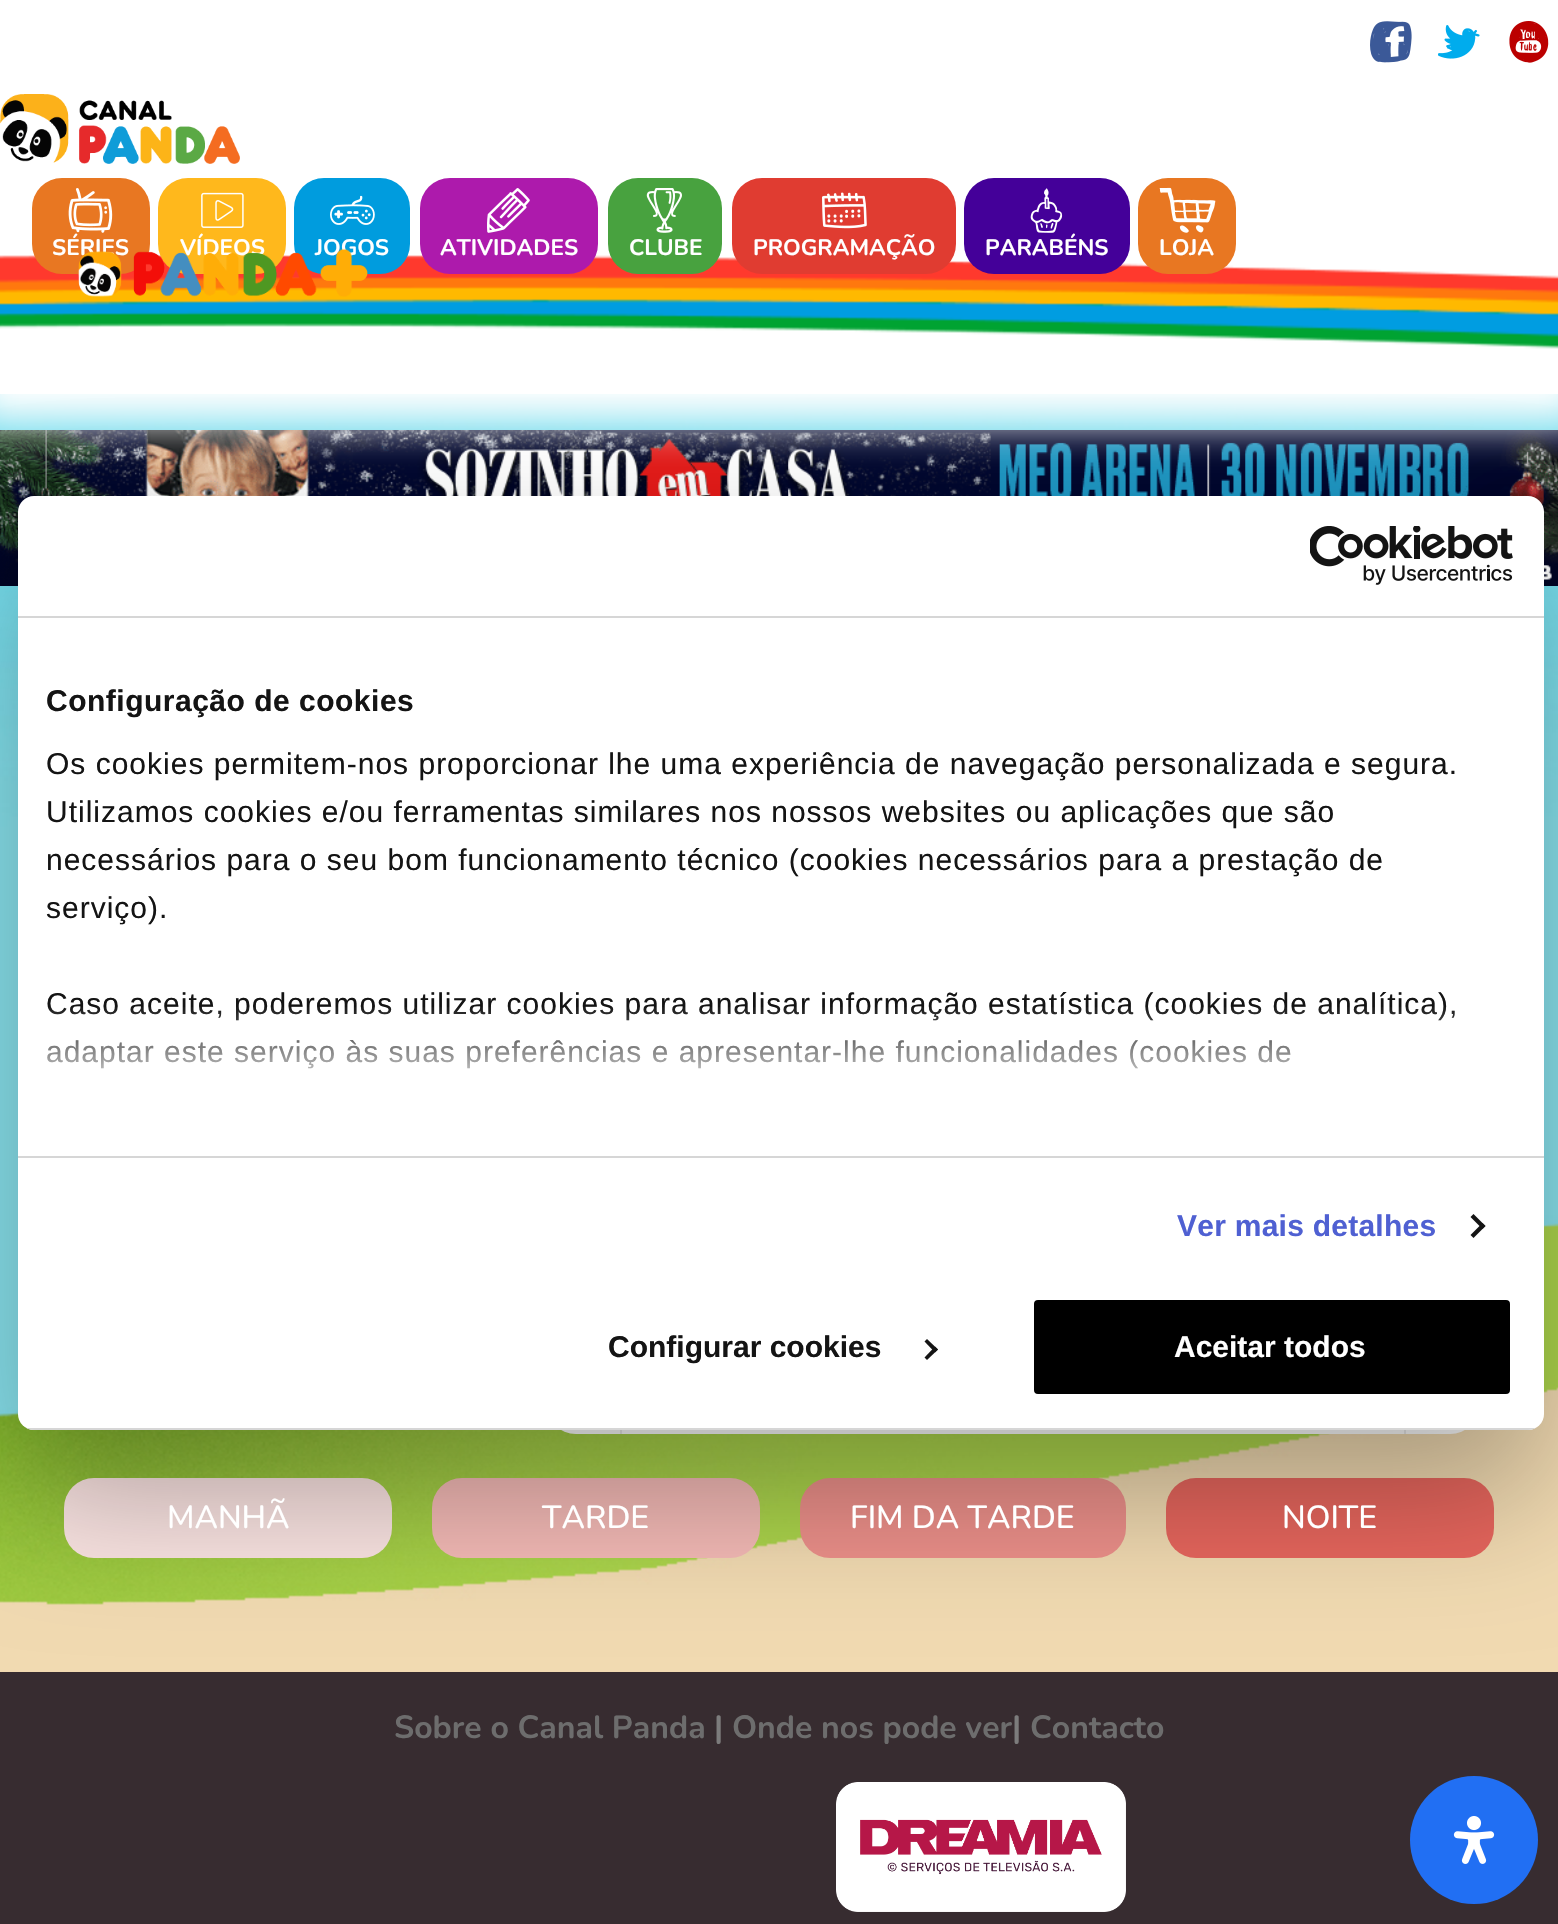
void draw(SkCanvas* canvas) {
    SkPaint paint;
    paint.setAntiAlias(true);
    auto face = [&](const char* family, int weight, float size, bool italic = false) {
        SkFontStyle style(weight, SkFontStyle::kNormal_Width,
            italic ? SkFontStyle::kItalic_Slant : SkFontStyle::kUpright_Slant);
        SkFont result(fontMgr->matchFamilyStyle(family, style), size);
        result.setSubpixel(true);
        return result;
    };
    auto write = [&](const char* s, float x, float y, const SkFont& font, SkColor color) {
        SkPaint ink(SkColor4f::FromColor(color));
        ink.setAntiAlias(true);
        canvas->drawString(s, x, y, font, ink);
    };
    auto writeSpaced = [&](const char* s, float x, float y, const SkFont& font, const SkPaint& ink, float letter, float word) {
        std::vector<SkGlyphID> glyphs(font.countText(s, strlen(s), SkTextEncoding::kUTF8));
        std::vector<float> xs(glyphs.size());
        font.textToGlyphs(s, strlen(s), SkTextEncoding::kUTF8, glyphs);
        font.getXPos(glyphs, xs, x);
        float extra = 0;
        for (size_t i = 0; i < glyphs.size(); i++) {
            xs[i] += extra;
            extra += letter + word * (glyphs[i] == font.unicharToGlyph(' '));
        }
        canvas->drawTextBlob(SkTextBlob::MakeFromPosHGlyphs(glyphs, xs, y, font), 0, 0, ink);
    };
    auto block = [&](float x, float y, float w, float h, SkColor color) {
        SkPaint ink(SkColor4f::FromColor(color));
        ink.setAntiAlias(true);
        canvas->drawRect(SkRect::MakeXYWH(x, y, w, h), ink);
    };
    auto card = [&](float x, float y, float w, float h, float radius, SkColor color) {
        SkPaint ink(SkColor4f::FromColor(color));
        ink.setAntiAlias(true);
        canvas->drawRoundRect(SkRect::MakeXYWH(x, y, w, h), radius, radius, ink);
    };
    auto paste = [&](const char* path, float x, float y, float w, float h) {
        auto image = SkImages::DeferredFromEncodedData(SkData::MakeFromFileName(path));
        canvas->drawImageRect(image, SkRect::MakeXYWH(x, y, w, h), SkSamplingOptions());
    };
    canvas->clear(SkColorSetRGB(241, 218, 177));
    paste("pic1.png", 0, 394, 1558, 1211);
    paste("pic17.png", 0, 430, 1558, 156);
    paint.setColor(SK_ColorWHITE);
    paint.setMaskFilter(SkMaskFilter::MakeBlur(kNormal_SkBlurStyle, 20));
    canvas->drawRect(SkRect::MakeXYWH(-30, -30, 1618, 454), paint);
    paint.setMaskFilter(nullptr);
    block(0, 0, 1558, 394, SK_ColorWHITE);
    paste("pic2.png", 0, 255, 1558, 94);
    paste("pic3.png", 1370, 21, 42, 42);
    paste("pic4.png", 1438, 25, 42, 34);
    paste("pic5.png", 1509, 21, 40, 42);
    paste("pic6.png", 0, 94, 240, 70);
    card(32, 178, 118, 96, 30, SkColorSetRGB(232, 119, 34));
    paste("pic7.png", 68, 188, 45, 45);
    auto kFont1 = face("Nunito", 700, 22.5f);
    write("SÉRIES", 52, 255, kFont1, SK_ColorWHITE);
    paint.setColor(SkColorSetRGB(232, 119, 34));
    canvas->drawPath(SkPathBuilder().moveTo(78, 274).lineTo(118, 274).lineTo(98, 294).close().detach(), paint);
    card(158, 178, 128, 96, 30, SkColorSetRGB(255, 184, 28));
    paste("pic8.png", 201, 192, 43, 36);
    write("VÍDEOS", 180, 255, kFont1, SK_ColorWHITE);
    card(294, 178, 116, 96, 30, SkColorSetRGB(0, 156, 222));
    paste("pic9.png", 330, 195, 45, 30);
    write("JOGOS", 315, 255, kFont1, SK_ColorWHITE);
    card(420, 178, 178, 96, 30, SkColorSetRGB(173, 26, 172));
    paste("pic10.png", 487, 188, 43, 45);
    write("ATIVIDADES", 440, 255, kFont1, SK_ColorWHITE);
    card(608, 178, 114, 96, 30, SkColorSetRGB(72, 162, 63));
    paste("pic11.png", 646, 188, 36, 45);
    write("CLUBE", 629, 255, kFont1, SK_ColorWHITE);
    card(732, 178, 224, 96, 30, SkColorSetRGB(224, 60, 49));
    paste("pic12.png", 822, 192, 45, 37);
    write("PROGRAMAÇÃO", 753, 255, kFont1, SK_ColorWHITE);
    card(964, 178, 166, 96, 30, SkColorSetRGB(68, 0, 153));
    paste("pic13.png", 1030, 188, 33, 45);
    write("PARABÉNS", 985, 255, kFont1, SK_ColorWHITE);
    card(1138, 178, 98, 96, 30, SkColorSetRGB(232, 119, 34));
    paste("pic14.png", 1159, 187, 57, 46);
    write("LOJA", 1159, 255, kFont1, SK_ColorWHITE);
    paste("pic15.png", 78, 248, 290, 49);
    card(546, 938, 934, 496, 30, SK_ColorWHITE);
    block(1404, 1430, 2, 4, SkColorSetRGB(235, 235, 235));
    block(620, 1430, 2, 4, SkColorSetRGB(235, 235, 235));
    card(64, 1478, 328, 80, 30, SkColorSetRGB(251, 228, 226));
    card(432, 1478, 328, 80, 30, SkColorSetRGB(244, 186, 182));
    card(800, 1478, 326, 80, 30, SkColorSetRGB(237, 144, 138));
    card(1166, 1478, 328, 80, 30, SkColorSetRGB(231, 102, 93));
    block(0, 1672, 1558, 252, SkColorSetRGB(55, 44, 48));
    paint.setColor(SkColorSetARGB(77, 0, 0, 0));
    paint.setMaskFilter(SkMaskFilter::MakeBlur(kNormal_SkBlurStyle, 68));
    canvas->drawRoundRect(SkRect::MakeXYWH(18, 560, 1526, 934), 16, 16, paint);
    paint.setMaskFilter(nullptr);
    card(18, 496, 1526, 934, 16, SK_ColorWHITE);
    block(18, 616, 1526, 2, SkColorSetRGB(214, 214, 214));
    paste("pic16.png", 1310, 526, 203, 59);
    block(18, 1156, 1526, 2, SkColorSetRGB(214, 214, 214));
    auto kFont2 = face("Liberation Sans", 700, 30);
    paint.setColor(SkColorSetRGB(20, 20, 20));
    writeSpaced("Configuração de cookies", 46, 711, kFont2, paint, 0.5f, 0);
    auto kFont3 = face("Liberation Sans", 400, 30);
    writeSpaced("Os cookies permitem-nos proporcionar lhe uma experiência de navegação personalizada e segura.", 46, 774, kFont3, paint, 1, 0);
    writeSpaced("Utilizamos cookies e/ou ferramentas similares nos nossos websites ou aplicações que são", 46, 822, kFont3, paint, 1, 0);
    writeSpaced("necessários para o seu bom funcionamento técnico (cookies necessários para a prestação de", 46, 870, kFont3, paint, 1, 0);
    writeSpaced("serviço).", 46, 918, kFont3, paint, 1, 0);
    writeSpaced("Caso aceite, poderemos utilizar cookies para analisar informação estatística (cookies de analítica),", 46, 1014, kFont3, paint, 1, 0);
    writeSpaced("adaptar este serviço às suas preferências e apresentar-lhe funcionalidades (cookies de", 46, 1062, kFont3, paint, 1, 0);
    {
        const SkColor colors[] = {SK_ColorWHITE, SkColorSetARGB(204, 255, 255, 255), SkColorSetARGB(0, 255, 255, 255)};
        const float stops[] = {0, 0.5f, 1};
        const SkPoint ends[] = {{767, 1155}, {767, 1005}};
        paint.setShader(SkGradientShader::MakeLinear(ends, colors, stops, 3, SkTileMode::kClamp));
        paint.setAlpha(255);
    }
    canvas->drawRect(SkRect::MakeXYWH(47, 1007, 1408, 62), paint);
    paint.setShader(nullptr);
    paint.setColor(SkColorSetRGB(79, 96, 210));
    writeSpaced("Ver mais detalhes", 1177, 1236, kFont2, paint, 0.25f, 0);
    paint.setColor(SkColorSetRGB(20, 20, 20));
    canvas->drawPath(SkPathBuilder().moveTo(1473.5f, 1214).lineTo(1485.5f, 1226).lineTo(1482.5f, 1229).lineTo(1470.5f, 1217).close().detach(), paint);
    canvas->drawPath(SkPathBuilder().moveTo(1482.5f, 1223).lineTo(1485.5f, 1226).lineTo(1473.5f, 1238).lineTo(1470.5f, 1235).close().detach(), paint);
    canvas->save();
    canvas->clipPath(SkPathBuilder().moveTo(34, 496).lineTo(1528, 496).cubicTo(1537, 496, 1544, 503, 1544, 512).lineTo(1544, 1414).cubicTo(1544, 1423, 1537, 1430, 1528, 1430).lineTo(34, 1430).cubicTo(25, 1430, 18, 1423, 18, 1414).lineTo(18, 512).cubicTo(18, 503, 25, 496, 34, 496).close().detach(), true);
    block(18, 1428, 1526, 2, SkColorSetRGB(214, 214, 214));
    canvas->restore();
    write("Configurar cookies", 608, 1357, kFont2, SkColorSetRGB(20, 20, 20));
    canvas->drawPath(SkPathBuilder().moveTo(927, 1339).lineTo(938, 1349.5f).lineTo(935, 1352.5f).lineTo(924.5f, 1341.5f).close().detach(), paint);
    canvas->drawPath(SkPathBuilder().moveTo(935, 1346.5f).lineTo(938, 1349.5f).lineTo(927, 1360).lineTo(924.5f, 1357.5f).close().detach(), paint);
    paint.setColor(SK_ColorBLACK);
    canvas->drawRoundRect(SkRect::MakeXYWH(1032, 1298, 480, 98), 6, 6, paint);
    paint.setStyle(SkPaint::kStroke_Style);
    paint.setStrokeWidth(4);
    paint.setColor(SK_ColorWHITE);
    canvas->drawRoundRect(SkRect::MakeXYWH(1032, 1298, 480, 98), 6, 6, paint);
    write("Aceitar todos", 1174, 1357, kFont2, SK_ColorWHITE);
    auto kFont4 = face("Nunito", 500, 32);
    write("MANHÃ", 167, 1528, kFont4, SK_ColorWHITE);
    write("TARDE", 542, 1528, kFont4, SK_ColorWHITE);
    write("FIM DA TARDE", 850, 1528, kFont4, SK_ColorWHITE);
    write("NOITE", 1282, 1528, kFont4, SK_ColorWHITE);
    auto kFont5 = face("Nunito", 700, 32);
    write("Sobre o Canal Panda", 394, 1738, kFont5, SkColorSetRGB(109, 109, 109));
    write("|", 714, 1738, kFont5, SkColorSetRGB(124, 124, 124));
    write("Onde nos pode ver", 732, 1738, kFont5, SkColorSetRGB(109, 109, 109));
    write("|", 1012, 1738, kFont5, SkColorSetRGB(124, 124, 124));
    write("Contacto", 1030, 1738, kFont5, SkColorSetRGB(109, 109, 109));
    paste("pic18.png", 836, 1782, 290, 130);
    paint.setStyle(SkPaint::kFill_Style);
    paint.setColor(SkColorSetRGB(33, 111, 243));
    canvas->drawCircle(1474, 1840, 64, paint);
    paste("pic19.png", 1453, 1816, 42, 48);
}
